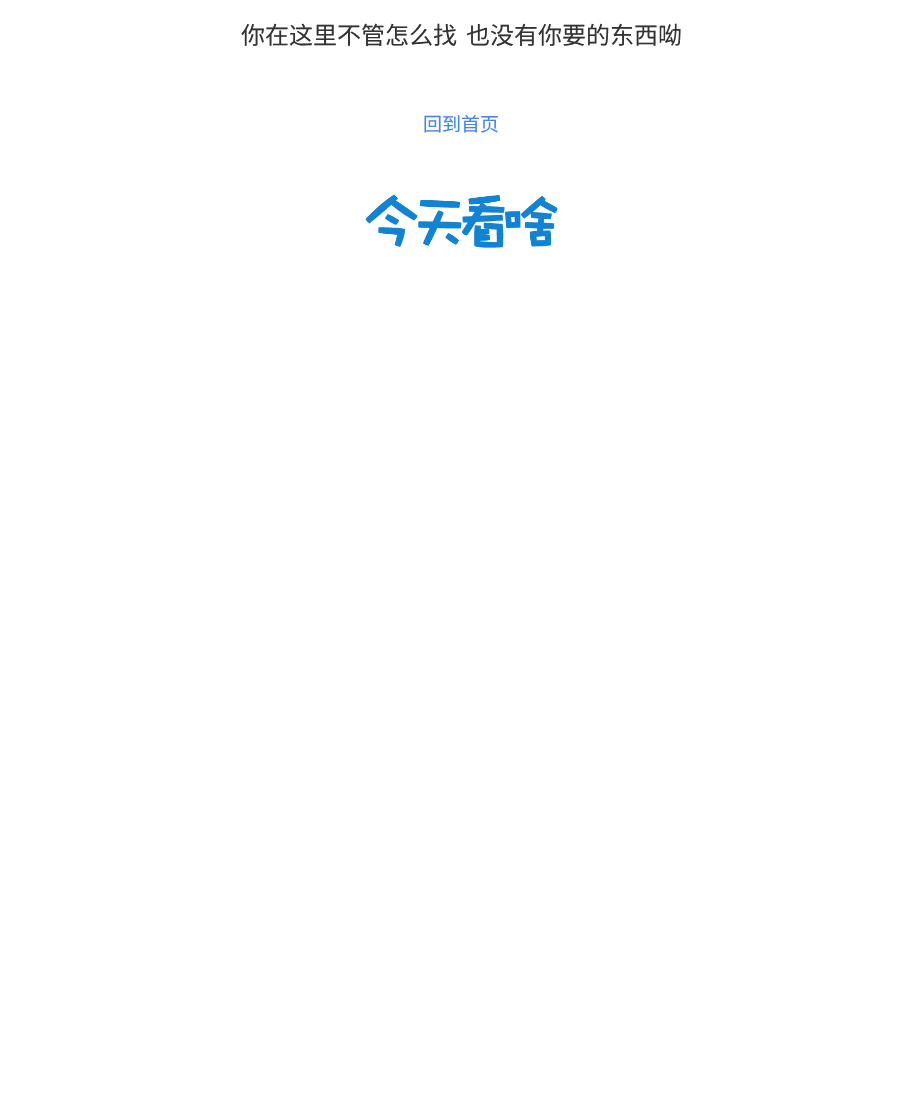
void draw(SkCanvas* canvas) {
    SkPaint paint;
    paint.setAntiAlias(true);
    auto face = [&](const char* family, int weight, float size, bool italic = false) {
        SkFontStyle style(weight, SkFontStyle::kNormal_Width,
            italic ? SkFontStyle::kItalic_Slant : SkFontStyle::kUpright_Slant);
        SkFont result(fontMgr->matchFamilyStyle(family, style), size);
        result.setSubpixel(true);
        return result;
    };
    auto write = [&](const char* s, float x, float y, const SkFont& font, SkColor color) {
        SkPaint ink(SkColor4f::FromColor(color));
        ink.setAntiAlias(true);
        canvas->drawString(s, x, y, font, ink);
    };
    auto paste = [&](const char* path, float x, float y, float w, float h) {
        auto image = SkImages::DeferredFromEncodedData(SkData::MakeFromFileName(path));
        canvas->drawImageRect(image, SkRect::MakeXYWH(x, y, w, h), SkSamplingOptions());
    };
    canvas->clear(SK_ColorWHITE);
    auto kFont1 = face("Noto Sans CJK SC", 400, 24);
    write("你在这里不管怎么找", 241, 44, kFont1, SkColorSetRGB(51, 51, 51));
    write("也没有你要的东西呦", 466, 44, kFont1, SkColorSetRGB(51, 51, 51));
    auto kFont2 = face("Noto Sans CJK SC", 400, 19);
    write("回到首页", 423, 131, kFont2, SkColorSetRGB(66, 133, 244));
    paste("pic1.png", 365, 194, 193, 54);
}
